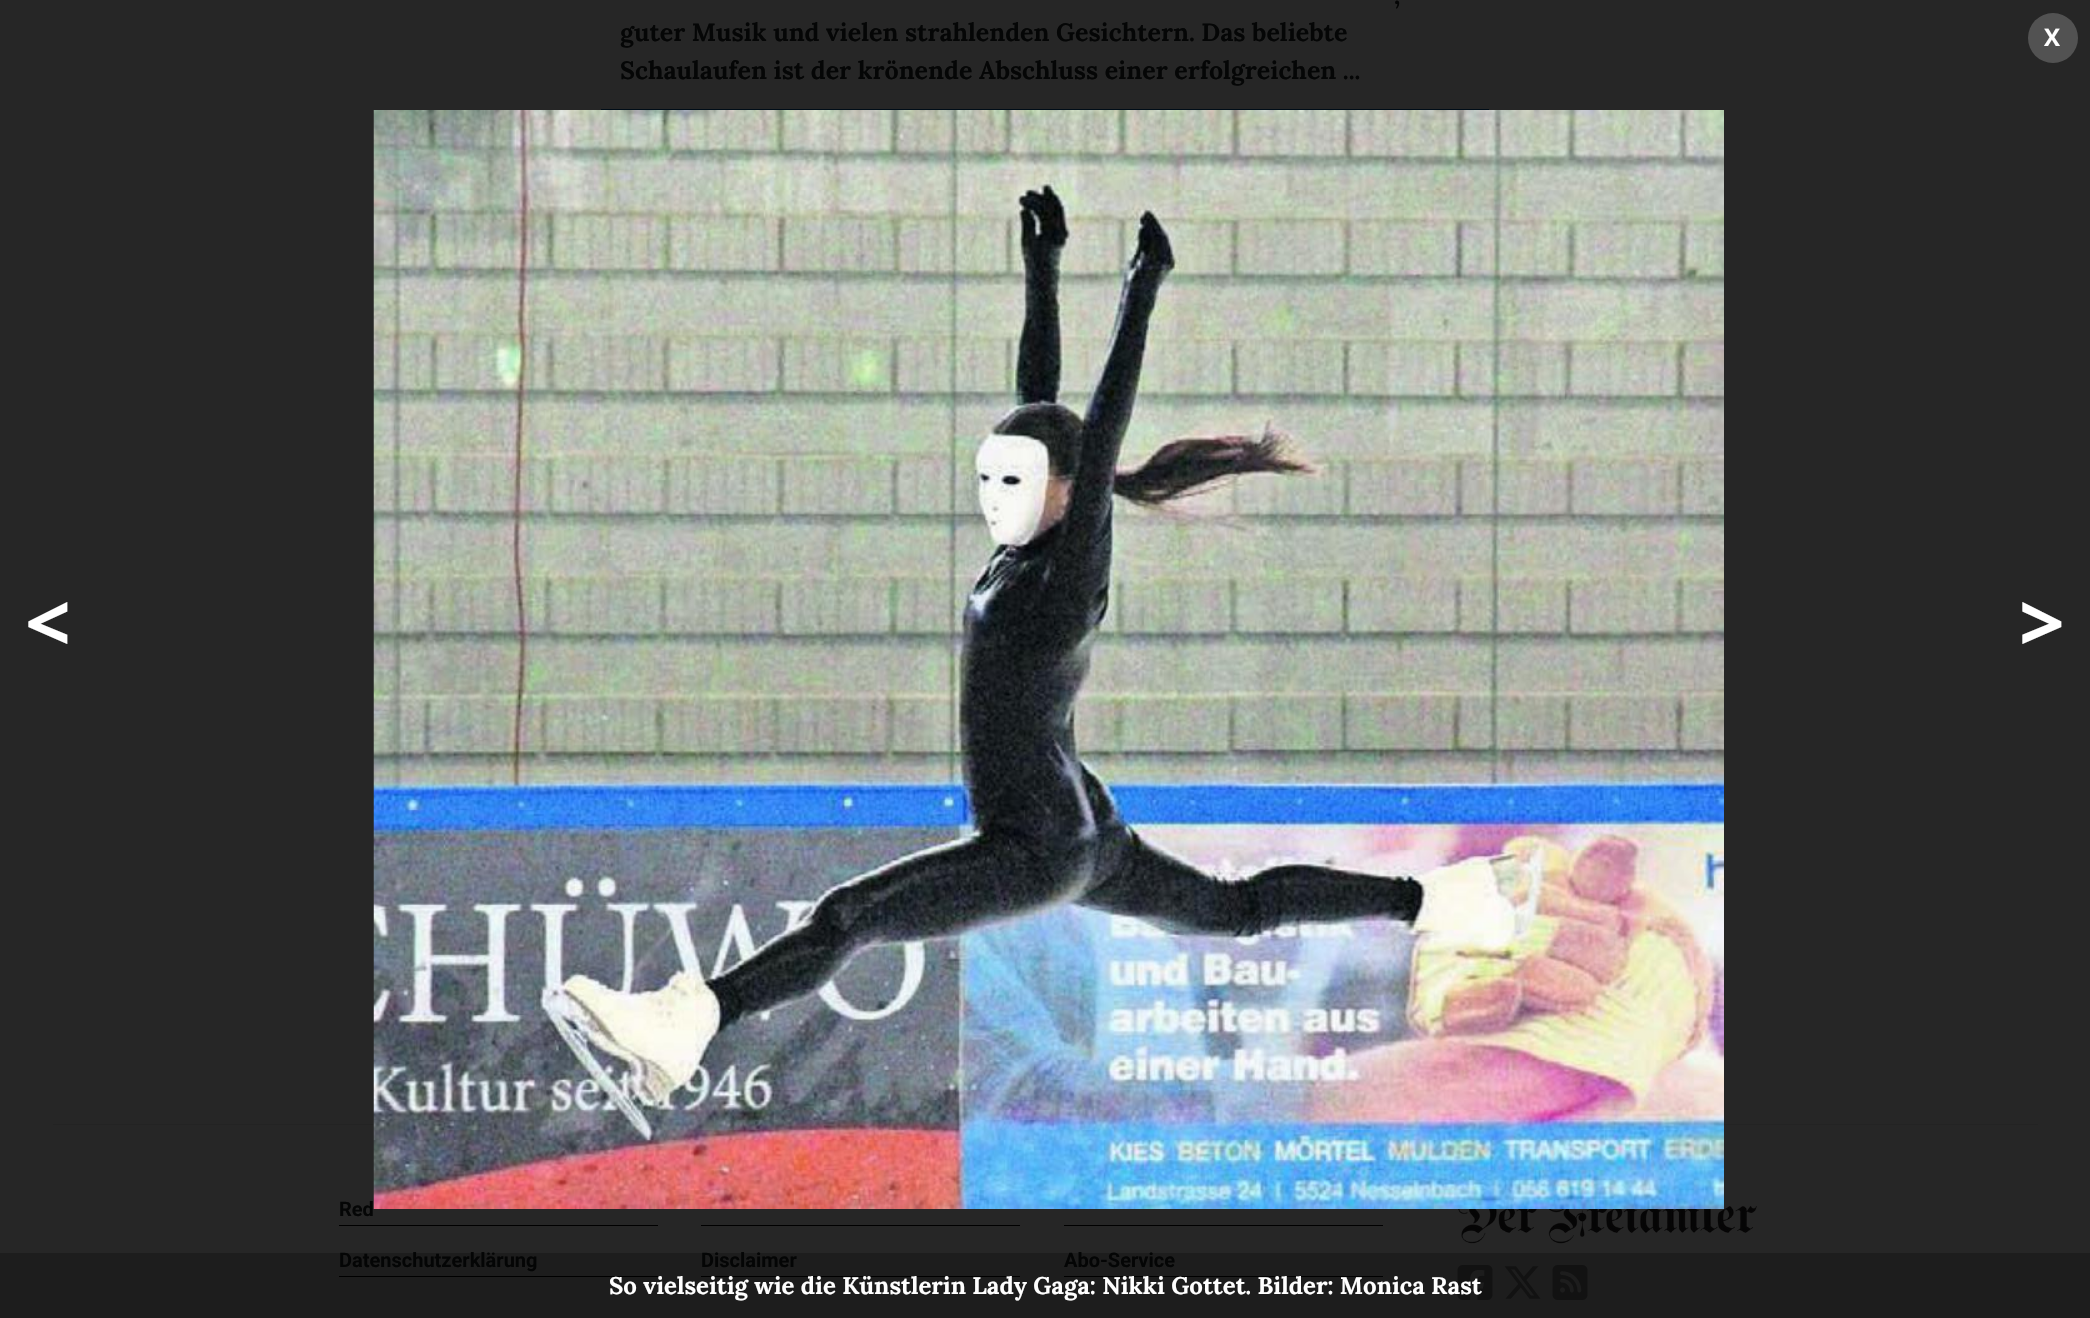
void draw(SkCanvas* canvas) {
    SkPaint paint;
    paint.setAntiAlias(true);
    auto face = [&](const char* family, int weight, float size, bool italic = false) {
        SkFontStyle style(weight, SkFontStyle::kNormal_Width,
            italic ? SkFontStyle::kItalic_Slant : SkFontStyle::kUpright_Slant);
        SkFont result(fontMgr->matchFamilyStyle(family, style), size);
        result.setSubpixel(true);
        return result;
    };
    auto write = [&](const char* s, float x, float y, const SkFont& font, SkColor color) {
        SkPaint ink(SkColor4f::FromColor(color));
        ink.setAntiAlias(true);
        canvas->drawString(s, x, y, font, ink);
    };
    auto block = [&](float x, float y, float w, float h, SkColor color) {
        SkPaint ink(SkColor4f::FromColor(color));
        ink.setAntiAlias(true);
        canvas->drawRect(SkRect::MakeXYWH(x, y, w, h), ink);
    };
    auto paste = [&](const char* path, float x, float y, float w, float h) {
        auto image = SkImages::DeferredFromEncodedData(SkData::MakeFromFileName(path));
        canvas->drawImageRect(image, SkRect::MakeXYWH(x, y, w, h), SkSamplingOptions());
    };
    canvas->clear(SkColorSetRGB(38, 38, 38));
    auto kFont1 = face("Lora", 700, 25);
    write(",", 1394, 4, kFont1, SkColorSetRGB(5, 6, 6));
    write("guter Musik und vielen strahlenden Gesichtern. Das beliebte", 620, 41, kFont1, SkColorSetRGB(5, 6, 6));
    write("Schaulaufen ist der krönende Abschluss einer erfolgreichen ...", 620, 79, kFont1, SkColorSetRGB(5, 6, 6));
    block(601, 109, 888, 1, SkColorSetRGB(0, 13, 24));
    paint.setColor(SkColorSetRGB(82, 82, 82));
    canvas->drawCircle(2053, 38, 25, paint);
    auto kFont2 = face("Open Sans", 700, 24);
    write("X", 2044, 46, kFont2, SK_ColorWHITE);
    auto kFont3 = face("Open Sans", 700, 80);
    write("<", 25, 652, kFont3, SK_ColorWHITE);
    write(">", 2019, 652, kFont3, SK_ColorWHITE);
    block(53, 1124, 1985, 1, SkColorSetRGB(35, 35, 35));
    paste("pic2.png", 1458, 1205, 299, 39);
    paste("pic1.png", 373, 110, 1351, 1099);
    block(339, 1276, 319, 1, SK_ColorBLACK);
    auto kFont4 = face("Roboto", 700, 20);
    write("Datenschutzerklärung", 339, 1267, kFont4, SkColorSetRGB(5, 6, 6));
    block(701, 1276, 319, 1, SK_ColorBLACK);
    write("Disclaimer", 701, 1267, kFont4, SkColorSetRGB(5, 6, 6));
    block(1064, 1276, 319, 1, SK_ColorBLACK);
    write("Abo-Service", 1064, 1267, kFont4, SkColorSetRGB(5, 6, 6));
    paste("pic3.png", 1457, 1265, 36, 35);
    paste("pic4.png", 1504, 1266, 37, 33);
    paste("pic5.png", 1552, 1265, 36, 35);
    block(0, 1253, 2090, 65, SkColorSetARGB(64, 0, 0, 0));
    auto kFont5 = face("Lora", 700, 24);
    write("So vielseitig wie die Künstlerin Lady Gaga: Nikki Gottet. Bilder: Monica Rast", 609, 1294, kFont5, SK_ColorWHITE);
    block(339, 1225, 319, 1, SK_ColorBLACK);
    write("Red", 339, 1216, kFont4, SkColorSetRGB(5, 6, 6));
    block(701, 1225, 319, 1, SK_ColorBLACK);
    block(1064, 1225, 319, 1, SK_ColorBLACK);
}
